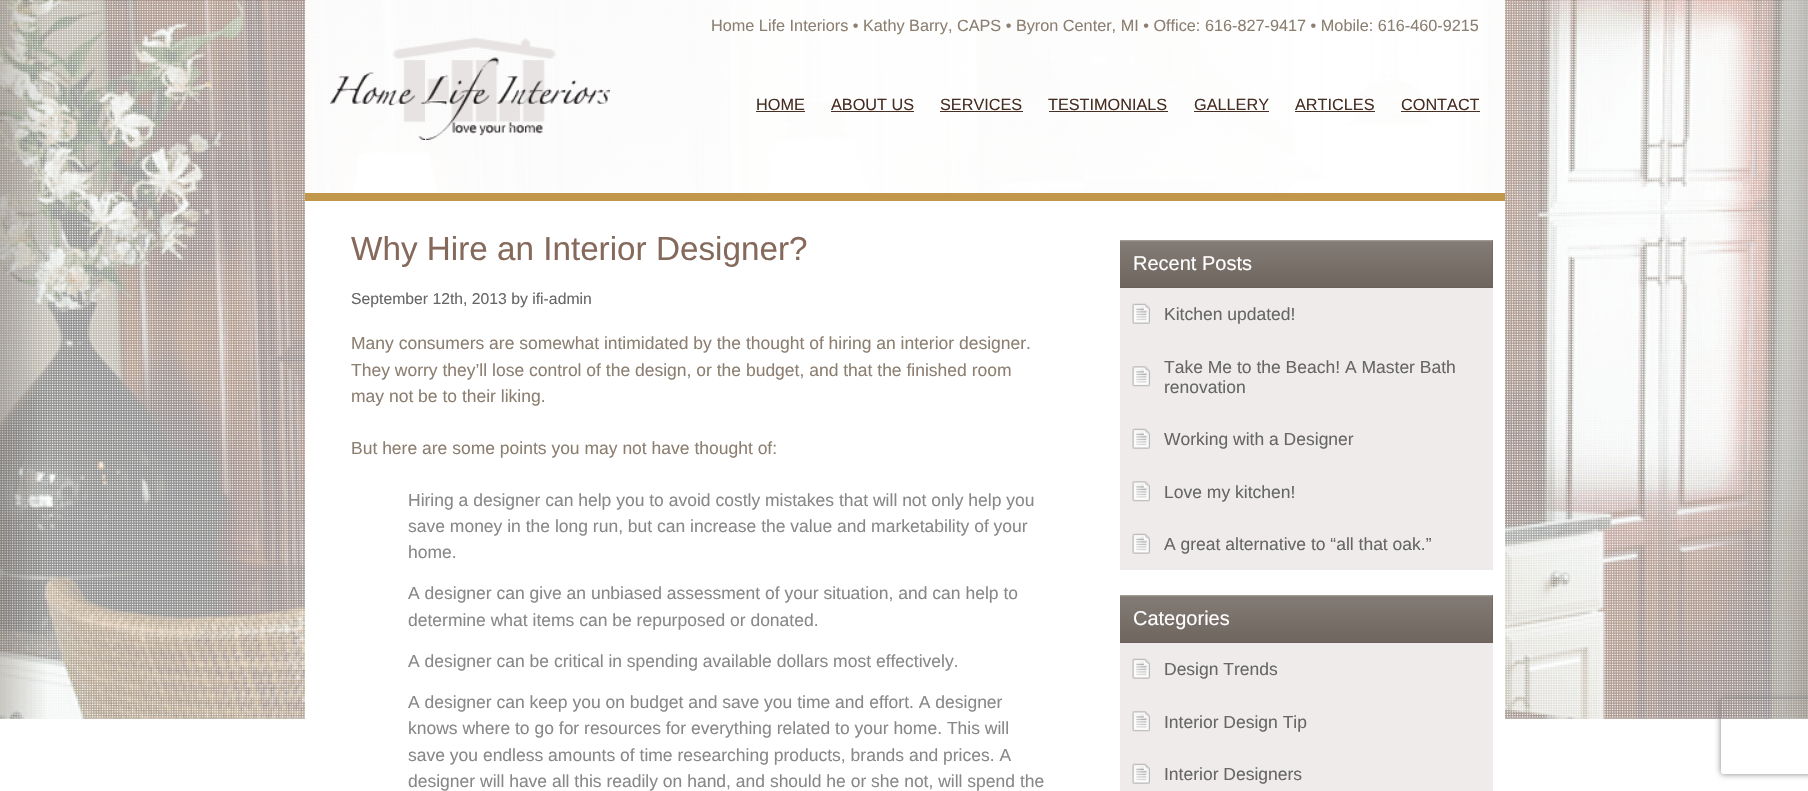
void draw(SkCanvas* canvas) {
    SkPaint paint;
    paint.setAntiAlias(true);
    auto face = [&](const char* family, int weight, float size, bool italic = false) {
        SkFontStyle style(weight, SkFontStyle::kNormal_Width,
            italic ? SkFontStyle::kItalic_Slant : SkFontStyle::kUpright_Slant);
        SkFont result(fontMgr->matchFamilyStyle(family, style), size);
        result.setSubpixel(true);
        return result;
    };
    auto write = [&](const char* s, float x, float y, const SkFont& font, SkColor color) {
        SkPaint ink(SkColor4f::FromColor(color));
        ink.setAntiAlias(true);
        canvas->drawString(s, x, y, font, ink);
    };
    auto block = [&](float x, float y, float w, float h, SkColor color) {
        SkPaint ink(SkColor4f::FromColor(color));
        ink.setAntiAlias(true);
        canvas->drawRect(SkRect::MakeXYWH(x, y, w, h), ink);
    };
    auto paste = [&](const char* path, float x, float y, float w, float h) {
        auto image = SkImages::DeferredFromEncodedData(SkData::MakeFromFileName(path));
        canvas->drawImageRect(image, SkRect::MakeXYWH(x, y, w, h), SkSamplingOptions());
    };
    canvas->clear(SK_ColorWHITE);
    paste("pic1.png", 0, 0, 1808, 719);
    block(305, 0, 1200, 193, SkColorSetARGB(242, 255, 255, 255));
    block(305, 193, 1200, 8, SkColorSetRGB(193, 151, 76));
    auto kFont1 = face("Liberation Sans", 400, 16.25f);
    write("Home Life Interiors • Kathy Barry, CAPS • Byron Center, MI • Office: 616-827-9417 • Mobile: 616-460-9215", 711, 31, kFont1, SkColorSetRGB(140, 127, 113));
    paste("pic2.png", 330, 37, 280, 103);
    write("HOME", 756, 110, kFont1, SkColorSetRGB(71, 46, 34));
    block(756, 111, 49, 1, SkColorSetRGB(71, 46, 34));
    write("ABOUT US", 831, 110, kFont1, SkColorSetRGB(71, 46, 34));
    block(831, 111, 83, 1, SkColorSetRGB(71, 46, 34));
    write("SERVICES", 940, 110, kFont1, SkColorSetRGB(71, 46, 34));
    block(940, 111, 83, 1, SkColorSetRGB(71, 46, 34));
    write("TESTIMONIALS", 1048, 110, kFont1, SkColorSetRGB(71, 46, 34));
    block(1049, 111, 119, 1, SkColorSetRGB(71, 46, 34));
    write("GALLERY", 1194, 110, kFont1, SkColorSetRGB(71, 46, 34));
    block(1194, 111, 75, 1, SkColorSetRGB(71, 46, 34));
    write("ARTICLES", 1295, 110, kFont1, SkColorSetRGB(71, 46, 34));
    block(1295, 111, 80, 1, SkColorSetRGB(71, 46, 34));
    write("CONTACT", 1401, 110, kFont1, SkColorSetRGB(71, 46, 34));
    block(1401, 111, 79, 1, SkColorSetRGB(71, 46, 34));
    block(305, 201, 1200, 518, SK_ColorWHITE);
    auto kFont2 = face("Liberation Sans", 400, 33.25f);
    write("Why Hire an Interior Designer?", 351, 260, kFont2, SkColorSetRGB(133, 105, 91));
    auto kFont3 = face("Liberation Sans", 400, 15.75f);
    write("September 12th, 2013 by ifi-admin", 351, 304, kFont3, SkColorSetRGB(102, 102, 102));
    auto kFont4 = face("Liberation Sans", 400, 17.5f);
    write("Many consumers are somewhat intimidated by the thought of hiring an interior designer.", 351, 349, kFont4, SkColorSetRGB(140, 127, 113));
    write("They worry they’ll lose control of the design, or the budget, and that the finished room", 351, 376, kFont4, SkColorSetRGB(140, 127, 113));
    write("may not be to their liking.", 351, 402, kFont4, SkColorSetRGB(140, 127, 113));
    write("But here are some points you may not have thought of:", 351, 454, kFont4, SkColorSetRGB(140, 127, 113));
    write("Hiring a designer can help you to avoid costly mistakes that will not only help you", 408, 506, kFont4, SkColorSetRGB(136, 136, 136));
    write("save money in the long run, but can increase the value and marketability of your", 408, 532, kFont4, SkColorSetRGB(136, 136, 136));
    write("home.", 408, 558, kFont4, SkColorSetRGB(136, 136, 136));
    write("A designer can give an unbiased assessment of your situation, and can help to", 408, 599, kFont4, SkColorSetRGB(136, 136, 136));
    write("determine what items can be repurposed or donated.", 408, 626, kFont4, SkColorSetRGB(136, 136, 136));
    write("A designer can be critical in spending available dollars most effectively.", 408, 667, kFont4, SkColorSetRGB(136, 136, 136));
    write("A designer can keep you on budget and save you time and effort. A designer", 408, 708, kFont4, SkColorSetRGB(136, 136, 136));
    write("knows where to go for resources for everything related to your home. This will", 408, 734, kFont4, SkColorSetRGB(136, 136, 136));
    write("save you endless amounts of time researching products, brands and prices. A", 408, 761, kFont4, SkColorSetRGB(136, 136, 136));
    write("designer will have all this readily on hand, and should he or she not, will spend the", 408, 787, kFont4, SkColorSetRGB(136, 136, 136));
    block(1120, 288, 373, 282, SkColorSetRGB(238, 235, 234));
    block(1120, 240, 373, 48, SkColorSetRGB(106, 96, 89));
    paste("pic3.png", 1120, 240, 373, 47);
    auto kFont5 = face("Liberation Sans", 400, 20);
    write("Recent Posts", 1133, 270, kFont5, SK_ColorWHITE);
    paste("pic4.png", 1132, 303, 18, 21);
    paint.setStyle(SkPaint::kStroke_Style);
    paint.setStrokeWidth(1.2f);
    paint.setColor(SkColorSetRGB(237, 237, 237));
    paint.setPathEffect(SkDashPathEffect::Make({{1.25f, 1.25f}}, 0));
    canvas->drawPath(SkPathBuilder().moveTo(1120, 339.5f).lineTo(1492.5f, 339.5f).detach(), paint);
    paint.setPathEffect(nullptr);
    write("Kitchen updated!", 1164, 320, kFont4, SkColorSetRGB(102, 102, 102));
    paste("pic5.png", 1132, 366, 18, 21);
    write("Take Me to the Beach! A Master Bath", 1164, 373, kFont4, SkColorSetRGB(102, 102, 102));
    write("renovation", 1164, 393, kFont4, SkColorSetRGB(102, 102, 102));
    paste("pic4.png", 1132, 428, 18, 21);
    paint.setPathEffect(SkDashPathEffect::Make({{1.25f, 1.25f}}, 0));
    canvas->drawPath(SkPathBuilder().moveTo(1120, 464.5f).lineTo(1492.5f, 464.5f).detach(), paint);
    paint.setPathEffect(nullptr);
    write("Working with a Designer", 1164, 445, kFont4, SkColorSetRGB(102, 102, 102));
    paste("pic5.png", 1132, 481, 18, 21);
    write("Love my kitchen!", 1164, 498, kFont4, SkColorSetRGB(102, 102, 102));
    paste("pic4.png", 1132, 533, 18, 21);
    paint.setPathEffect(SkDashPathEffect::Make({{1.25f, 1.25f}}, 0));
    canvas->drawPath(SkPathBuilder().moveTo(1120, 569.5f).lineTo(1492.5f, 569.5f).detach(), paint);
    paint.setPathEffect(nullptr);
    write("A great alternative to “all that oak.”", 1164, 550, kFont4, SkColorSetRGB(102, 102, 102));
    block(1120, 643, 373, 148, SkColorSetRGB(238, 235, 234));
    block(1120, 595, 373, 48, SkColorSetRGB(106, 96, 89));
    paste("pic6.png", 1120, 595, 373, 47);
    write("Categories", 1133, 625, kFont5, SK_ColorWHITE);
    paste("pic4.png", 1132, 658, 18, 21);
    paint.setPathEffect(SkDashPathEffect::Make({{1.25f, 1.25f}}, 0));
    canvas->drawPath(SkPathBuilder().moveTo(1120, 694.5f).lineTo(1492.5f, 694.5f).detach(), paint);
    paint.setPathEffect(nullptr);
    write("Design Trends", 1164, 675, kFont4, SkColorSetRGB(102, 102, 102));
    paste("pic5.png", 1132, 711, 18, 21);
    write("Interior Design Tip", 1164, 728, kFont4, SkColorSetRGB(102, 102, 102));
    paste("pic4.png", 1132, 763, 18, 21);
    write("Interior Designers", 1164, 780, kFont4, SkColorSetRGB(102, 102, 102));
    canvas->save();
    canvas->clipPath(SkPathBuilder(SkPathFillType::kEvenOdd).moveTo(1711, 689).lineTo(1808, 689).lineTo(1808, 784).lineTo(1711, 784).close().moveTo(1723.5f, 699).lineTo(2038.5f, 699).cubicTo(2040, 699, 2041, 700, 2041, 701.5f).lineTo(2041, 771.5f).cubicTo(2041, 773, 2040, 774, 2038.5f, 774).lineTo(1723.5f, 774).cubicTo(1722, 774, 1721, 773, 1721, 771.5f).lineTo(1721, 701.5f).cubicTo(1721, 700, 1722, 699, 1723.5f, 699).close().detach(), true);
    paint.setStyle(SkPaint::kFill_Style);
    paint.setColor(SkColorSetRGB(128, 128, 128));
    paint.setMaskFilter(SkMaskFilter::MakeBlur(kNormal_SkBlurStyle, 3));
    canvas->drawRoundRect(SkRect::MakeXYWH(1721, 699, 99, 75), 2.5f, 2.5f, paint);
    paint.setMaskFilter(nullptr);
    canvas->restore();
}
